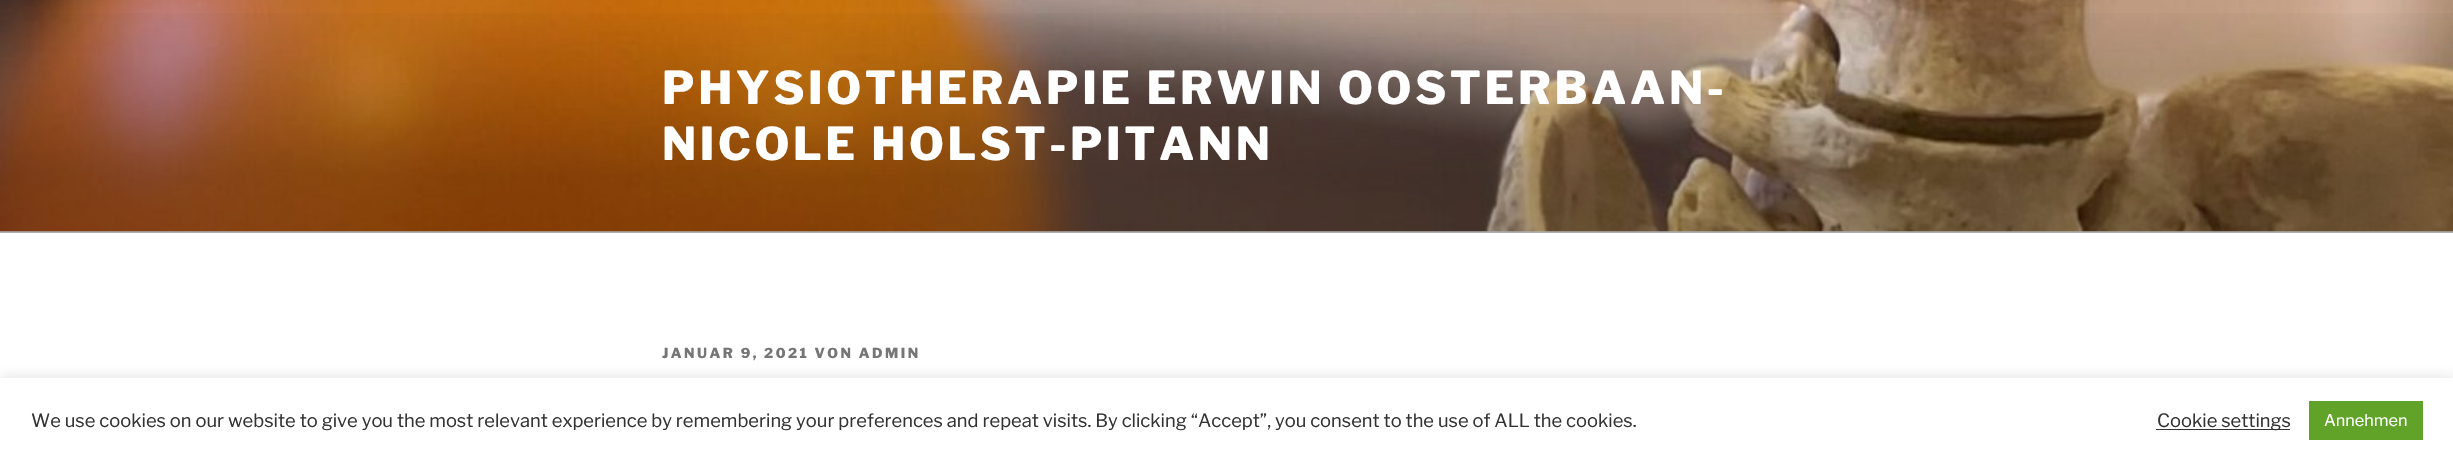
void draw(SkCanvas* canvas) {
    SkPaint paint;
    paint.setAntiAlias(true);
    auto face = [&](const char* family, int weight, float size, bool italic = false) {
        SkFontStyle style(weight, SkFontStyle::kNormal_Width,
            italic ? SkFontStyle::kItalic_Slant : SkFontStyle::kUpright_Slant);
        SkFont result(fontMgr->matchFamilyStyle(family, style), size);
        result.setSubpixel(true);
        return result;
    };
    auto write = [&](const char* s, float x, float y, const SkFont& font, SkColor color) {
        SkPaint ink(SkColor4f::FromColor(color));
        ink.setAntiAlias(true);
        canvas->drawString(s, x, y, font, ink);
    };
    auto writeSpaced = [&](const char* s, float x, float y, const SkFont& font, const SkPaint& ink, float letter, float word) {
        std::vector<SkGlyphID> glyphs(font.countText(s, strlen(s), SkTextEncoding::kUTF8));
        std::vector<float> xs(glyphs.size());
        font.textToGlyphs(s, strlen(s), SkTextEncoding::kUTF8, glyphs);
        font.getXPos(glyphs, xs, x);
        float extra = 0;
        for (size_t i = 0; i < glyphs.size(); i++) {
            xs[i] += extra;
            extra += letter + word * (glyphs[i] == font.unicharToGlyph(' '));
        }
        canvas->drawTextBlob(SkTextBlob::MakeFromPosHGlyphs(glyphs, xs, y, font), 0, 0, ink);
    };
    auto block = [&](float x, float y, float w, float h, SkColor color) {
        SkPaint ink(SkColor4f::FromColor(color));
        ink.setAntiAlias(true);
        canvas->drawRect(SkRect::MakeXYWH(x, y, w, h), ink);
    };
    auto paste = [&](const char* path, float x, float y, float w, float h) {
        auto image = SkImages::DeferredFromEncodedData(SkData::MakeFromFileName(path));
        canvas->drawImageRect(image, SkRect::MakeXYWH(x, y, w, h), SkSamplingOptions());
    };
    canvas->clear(SK_ColorWHITE);
    block(0, 231, 2453, 2, SkColorSetRGB(250, 250, 250));
    paste("pic1.png", 0, 0, 2453, 232);
    {
        const SkColor colors[] = {SkColorSetARGB(0, 0, 0, 0), SkColorSetARGB(77, 0, 0, 0), SkColorSetARGB(77, 0, 0, 0)};
        const float stops[] = {0, 0.75f, 1};
        const SkPoint ends[] = {{1227, 0}, {1227, 233}};
        paint.setShader(SkGradientShader::MakeLinear(ends, colors, stops, 3, SkTileMode::kClamp));
        paint.setAlpha(255);
    }
    canvas->drawRect(SkRect::MakeXYWH(0, 13, 2453, 220), paint);
    auto kFont1 = face("Libre Franklin", 800, 45);
    paint.setShader(nullptr);
    paint.setColor(SK_ColorWHITE);
    writeSpaced("PHYSIOTHERAPIE ERWIN OOSTERBAAN-", 662, 104, kFont1, paint, 3.6f, 0);
    writeSpaced("NICOLE HOLST-PITANN", 662, 160, kFont1, paint, 3.6f, 0);
    auto kFont2 = face("Libre Franklin", 800, 13.75f);
    paint.setColor(SkColorSetRGB(118, 118, 118));
    writeSpaced("JANUAR 9, 2021 VON ADMIN", 662, 358, kFont2, paint, 2.5f, 0);
    paint.setColor(SkColorSetARGB(77, 172, 171, 171));
    paint.setMaskFilter(SkMaskFilter::MakeBlur(kNormal_SkBlurStyle, 6));
    canvas->drawRect(SkRect::MakeXYWH(0, 376, 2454, 87), paint);
    paint.setMaskFilter(nullptr);
    block(0, 378, 2453, 85, SK_ColorWHITE);
    auto kFont3 = face("Libre Franklin", 400, 18.33f);
    write("We use cookies on our website to give you the most relevant experience by remembering your preferences and repeat visits. By clicking “Accept”, you consent to the use of ALL the cookies.", 31, 427, kFont3, SkColorSetRGB(51, 51, 51));
    block(2156, 429, 134, 1, SkColorSetRGB(51, 51, 51));
    write("Cookie settings", 2157, 427, kFont3, SkColorSetRGB(51, 51, 51));
    block(2309, 401, 114, 39, SkColorSetRGB(97, 162, 41));
    auto kFont4 = face("Libre Franklin", 400, 16.25f);
    write("Annehmen", 2324, 426, kFont4, SK_ColorWHITE);
}
